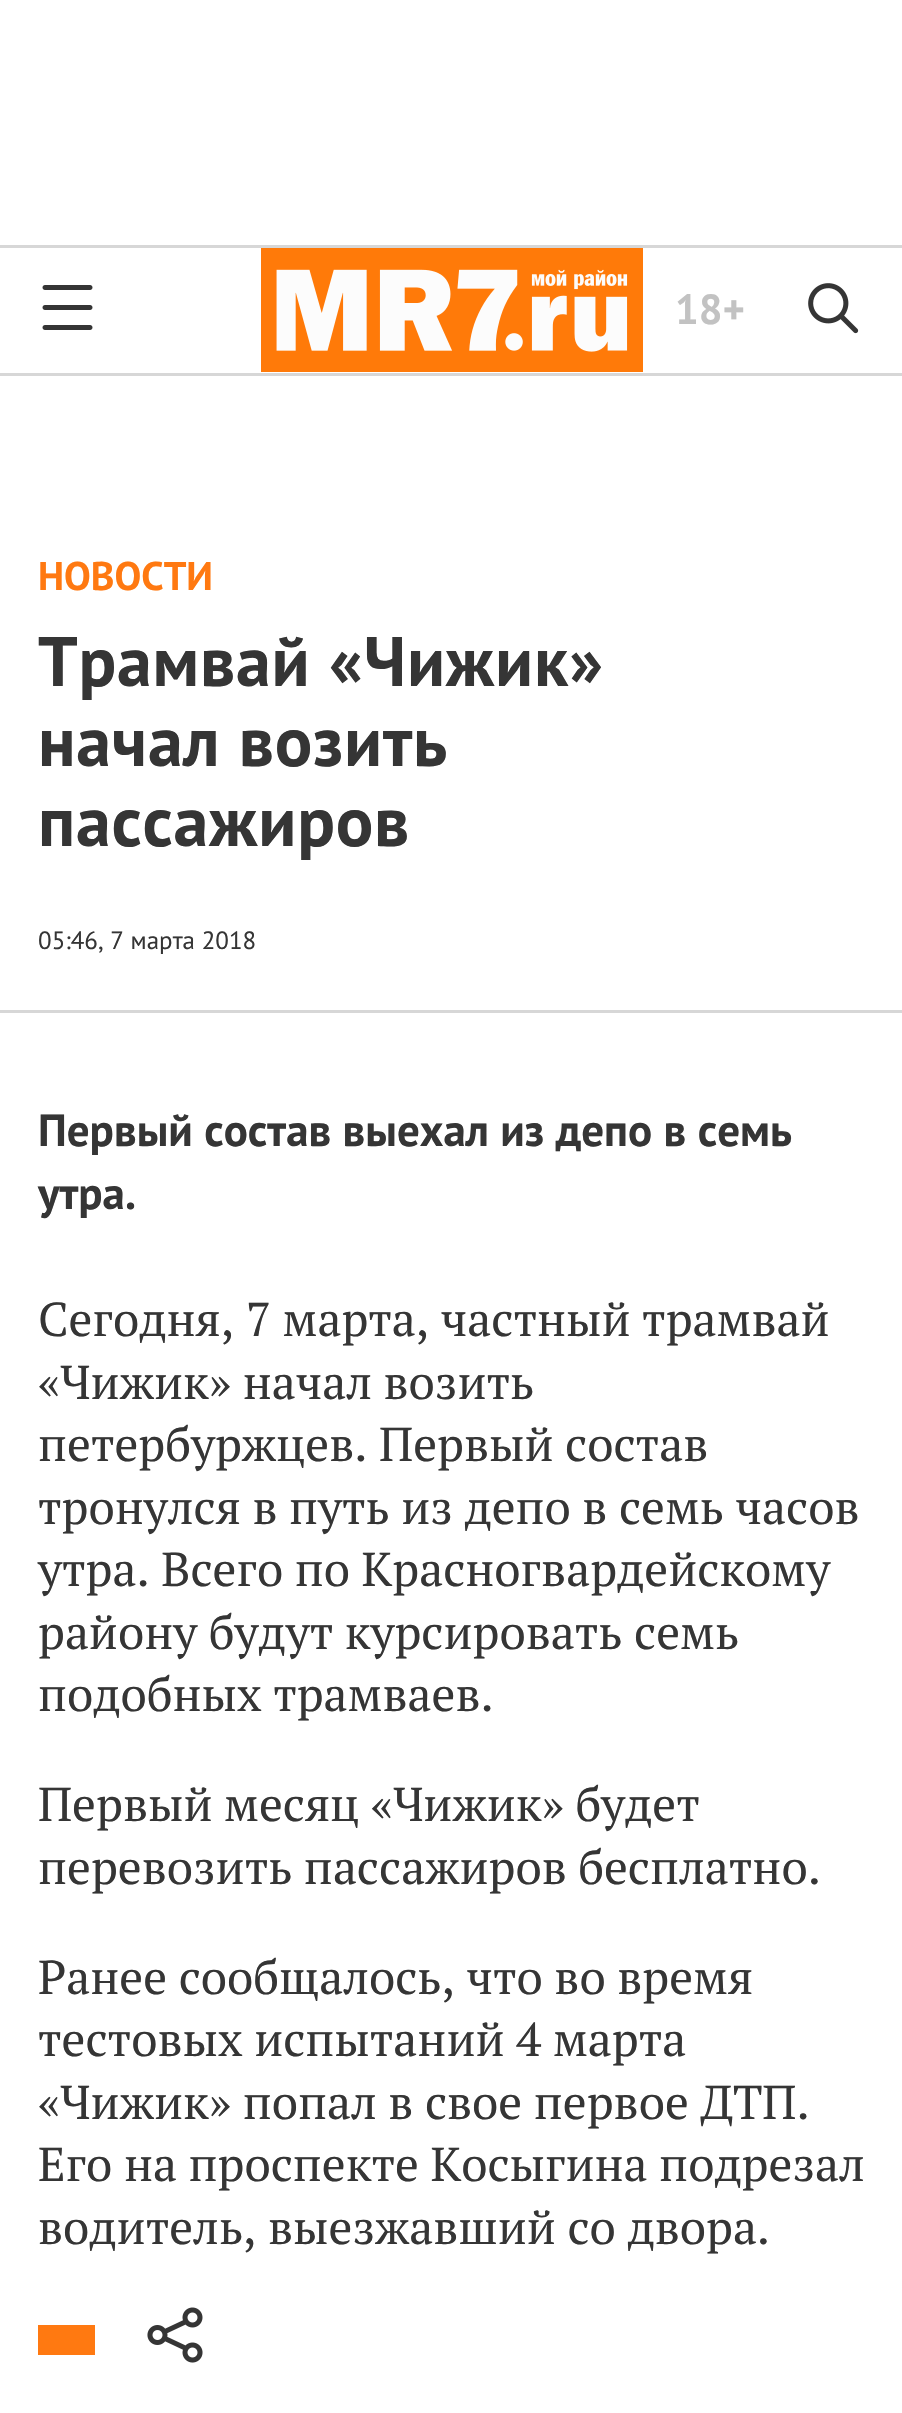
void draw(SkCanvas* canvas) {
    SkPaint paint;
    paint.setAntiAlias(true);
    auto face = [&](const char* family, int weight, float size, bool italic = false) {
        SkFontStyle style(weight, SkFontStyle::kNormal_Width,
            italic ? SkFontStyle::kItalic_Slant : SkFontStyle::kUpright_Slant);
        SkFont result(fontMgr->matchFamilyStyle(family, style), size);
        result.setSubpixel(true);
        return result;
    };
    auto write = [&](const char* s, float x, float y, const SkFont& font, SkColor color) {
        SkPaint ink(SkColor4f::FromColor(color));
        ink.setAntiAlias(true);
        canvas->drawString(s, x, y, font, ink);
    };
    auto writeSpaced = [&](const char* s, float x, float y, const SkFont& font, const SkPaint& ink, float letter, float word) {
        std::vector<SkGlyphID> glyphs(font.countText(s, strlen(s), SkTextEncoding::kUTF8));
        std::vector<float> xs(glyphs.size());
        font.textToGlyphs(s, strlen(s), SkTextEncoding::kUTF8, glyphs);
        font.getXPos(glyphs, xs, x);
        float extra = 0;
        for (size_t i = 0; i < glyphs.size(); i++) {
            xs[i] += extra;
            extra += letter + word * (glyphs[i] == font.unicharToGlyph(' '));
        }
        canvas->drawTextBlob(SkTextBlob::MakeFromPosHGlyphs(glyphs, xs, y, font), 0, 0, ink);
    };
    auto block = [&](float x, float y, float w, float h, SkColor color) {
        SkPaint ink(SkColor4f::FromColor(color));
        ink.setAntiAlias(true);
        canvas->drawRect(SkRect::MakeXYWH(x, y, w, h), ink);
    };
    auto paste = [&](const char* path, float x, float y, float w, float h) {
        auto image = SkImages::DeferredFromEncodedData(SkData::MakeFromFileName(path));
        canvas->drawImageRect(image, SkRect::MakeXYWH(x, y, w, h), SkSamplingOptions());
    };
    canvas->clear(SK_ColorWHITE);
    block(0, 245, 902, 3, SkColorSetRGB(215, 215, 215));
    block(0, 373, 902, 3, SkColorSetRGB(215, 215, 215));
    paste("pic1.png", 42, 285, 51, 45);
    paste("pic2.png", 261, 248, 382, 124);
    auto kFont1 = face("PT Sans", 700, 42);
    write("18+", 675, 324, kFont1, SkColorSetRGB(194, 194, 194));
    paste("pic3.png", 808, 283, 51, 51);
    block(0, 1010, 902, 3, SkColorSetRGB(215, 215, 215));
    auto kFont2 = face("PT Sans", 700, 40);
    write("НОВОСТИ", 38, 590, kFont2, SkColorSetRGB(255, 121, 17));
    auto kFont3 = face("PT Sans", 700, 70);
    paint.setColor(SkColorSetRGB(53, 53, 53));
    writeSpaced("Трамвай «Чижик»", 38, 686, kFont3, paint, 0.75f, 0);
    writeSpaced("начал возить", 38, 766, kFont3, paint, 0.75f, 0);
    writeSpaced("пассажиров", 38, 846, kFont3, paint, 0.75f, 0);
    auto kFont4 = face("PT Sans", 400, 25);
    write("05:46, 7 марта 2018", 38, 949, kFont4, SkColorSetRGB(53, 53, 53));
    auto kFont5 = face("PT Sans", 700, 45);
    write("Первый состав выехал из депо в семь", 38, 1146, kFont5, SkColorSetRGB(53, 53, 53));
    write("утра.", 38, 1209, kFont5, SkColorSetRGB(53, 53, 53));
    auto kFont6 = face("PT Serif", 400, 47.5f);
    write("Сегодня, 7 марта, частный трамвай", 38, 1336, kFont6, SkColorSetRGB(53, 53, 53));
    write("«Чижик» начал возить", 38, 1399, kFont6, SkColorSetRGB(53, 53, 53));
    write("петербуржцев. Первый состав", 38, 1461, kFont6, SkColorSetRGB(53, 53, 53));
    write("тронулся в путь из депо в семь часов", 38, 1524, kFont6, SkColorSetRGB(53, 53, 53));
    write("утра. Всего по Красногвардейскому", 38, 1586, kFont6, SkColorSetRGB(53, 53, 53));
    write("району будут курсировать семь", 38, 1649, kFont6, SkColorSetRGB(53, 53, 53));
    write("подобных трамваев.", 38, 1711, kFont6, SkColorSetRGB(53, 53, 53));
    write("Первый месяц «Чижик» будет", 38, 1821, kFont6, SkColorSetRGB(53, 53, 53));
    write("перевозить пассажиров бесплатно.", 38, 1884, kFont6, SkColorSetRGB(53, 53, 53));
    write("Ранее сообщалось, что во время", 38, 1994, kFont6, SkColorSetRGB(53, 53, 53));
    write("тестовых испытаний 4 марта", 38, 2056, kFont6, SkColorSetRGB(53, 53, 53));
    write("«Чижик» попал в свое первое ДТП.", 38, 2119, kFont6, SkColorSetRGB(53, 53, 53));
    write("Его на проспекте Косыгина подрезал", 38, 2181, kFont6, SkColorSetRGB(53, 53, 53));
    write("водитель, выезжавший со двора.", 38, 2244, kFont6, SkColorSetRGB(53, 53, 53));
    block(38, 2325, 57, 30, SkColorSetRGB(255, 121, 17));
    paste("pic4.png", 147, 2307, 56, 56);
}
